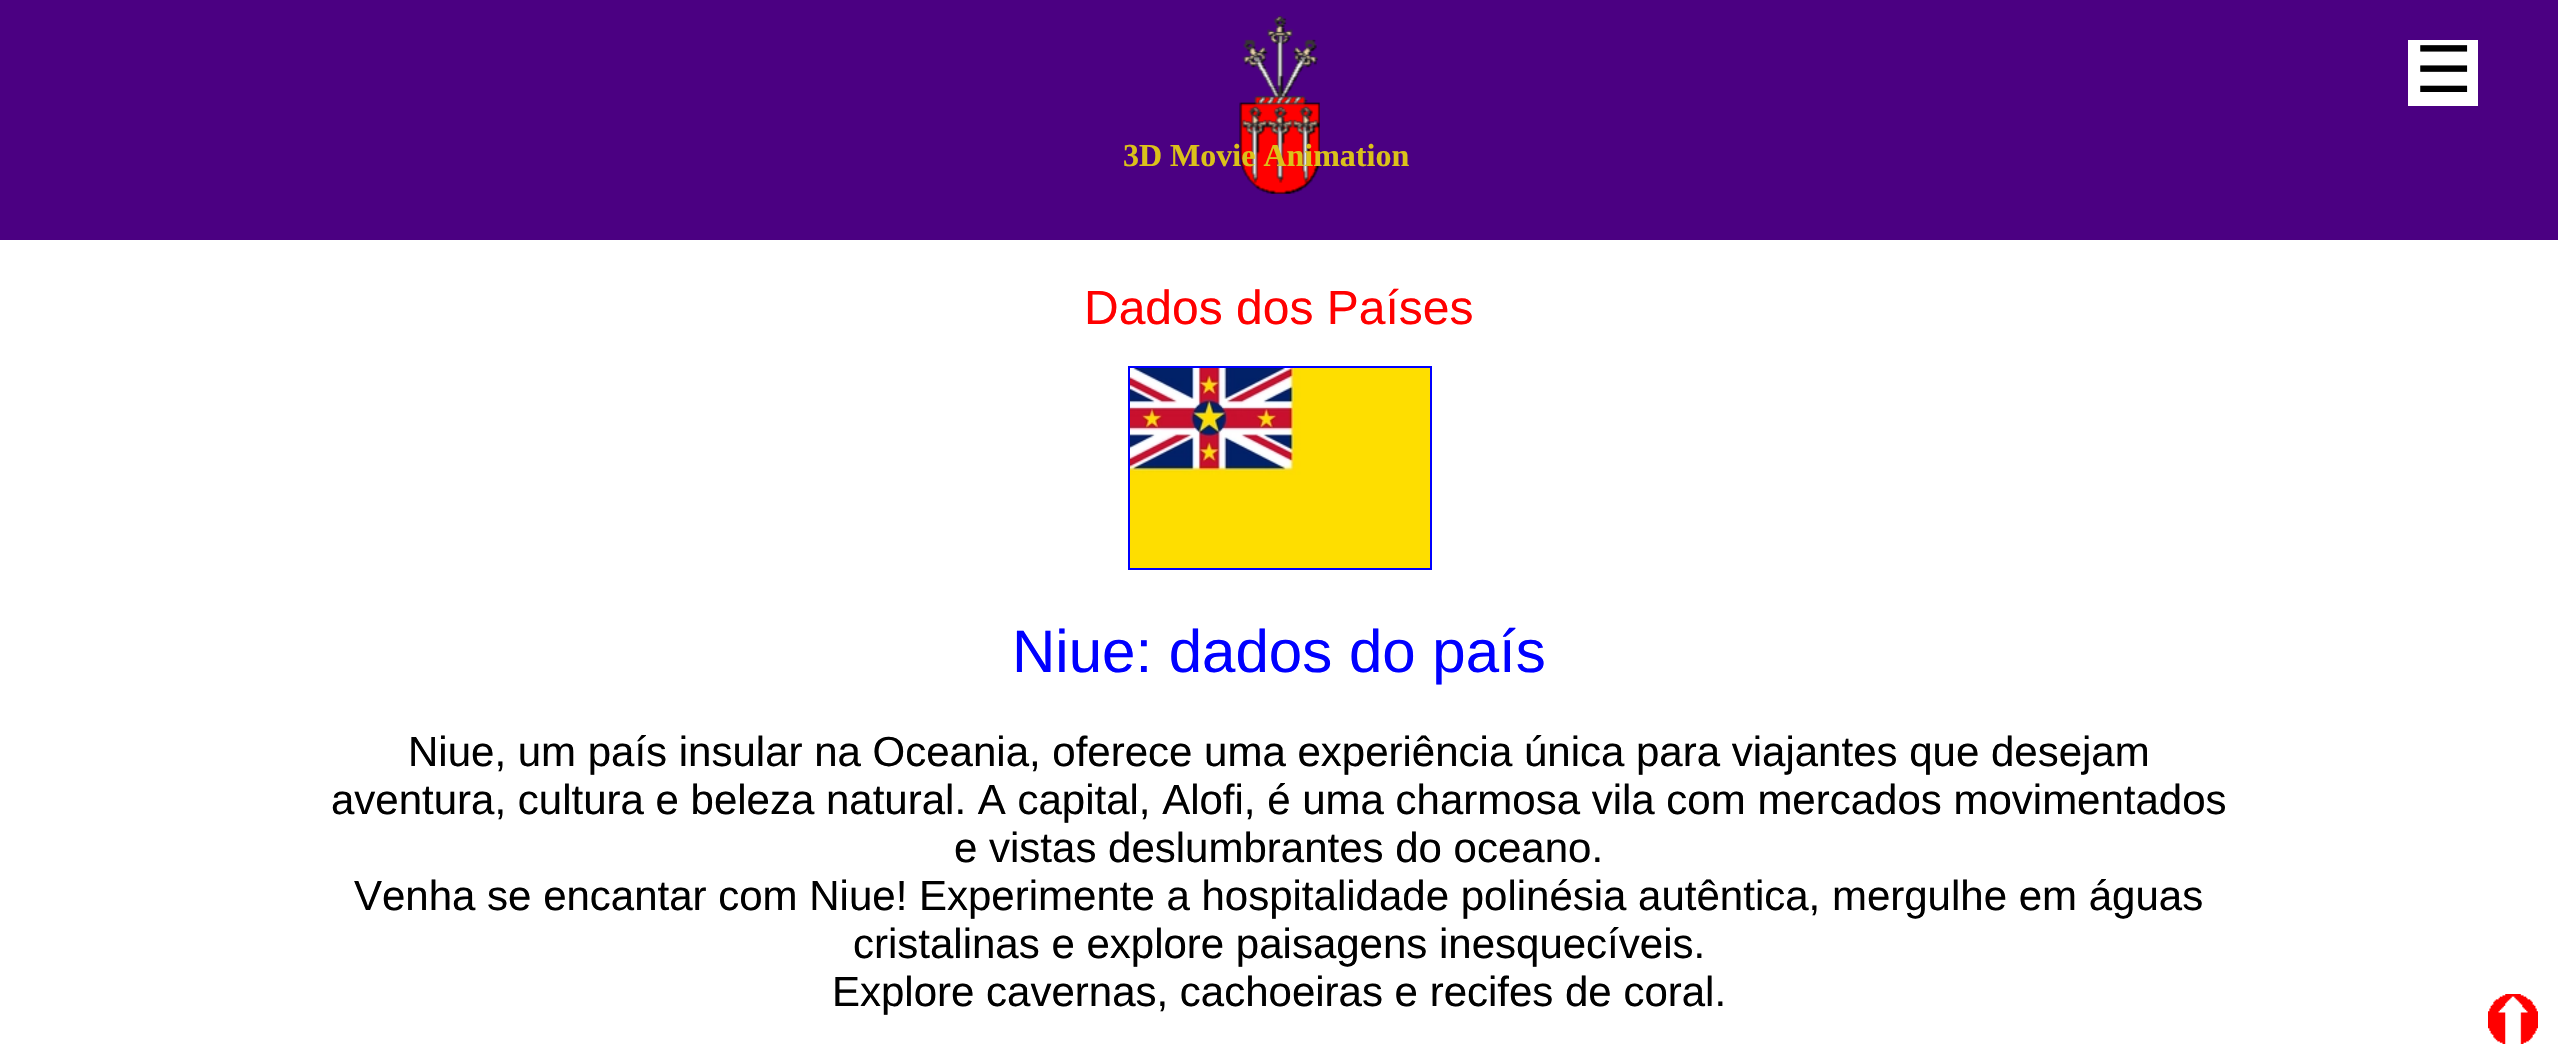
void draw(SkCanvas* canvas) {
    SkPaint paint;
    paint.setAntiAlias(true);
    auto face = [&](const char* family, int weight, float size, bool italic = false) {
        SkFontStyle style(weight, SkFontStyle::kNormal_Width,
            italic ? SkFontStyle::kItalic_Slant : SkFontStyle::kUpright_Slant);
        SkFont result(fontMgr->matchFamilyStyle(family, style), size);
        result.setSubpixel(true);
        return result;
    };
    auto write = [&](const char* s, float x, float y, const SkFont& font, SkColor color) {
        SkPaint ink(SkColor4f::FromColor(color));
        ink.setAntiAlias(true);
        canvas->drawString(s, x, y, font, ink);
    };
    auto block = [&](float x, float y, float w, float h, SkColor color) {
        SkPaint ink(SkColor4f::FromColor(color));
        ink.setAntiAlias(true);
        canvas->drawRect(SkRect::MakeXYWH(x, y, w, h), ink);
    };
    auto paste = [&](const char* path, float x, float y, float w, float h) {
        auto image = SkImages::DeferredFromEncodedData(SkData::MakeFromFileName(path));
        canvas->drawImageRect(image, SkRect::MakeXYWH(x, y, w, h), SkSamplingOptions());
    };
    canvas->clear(SK_ColorWHITE);
    block(0, 0, 2558, 240, SkColorSetRGB(75, 0, 130));
    block(2408, 40, 70, 66, SK_ColorWHITE);
    auto kFont1 = face("DejaVu Sans", 400, 64);
    write("☰", 2415, 92, kFont1, SK_ColorBLACK);
    paste("pic1.png", 1239, 16, 81, 178);
    auto kFont2 = face("Liberation Serif", 700, 32);
    write("3D Movie Animation", 1123, 166, kFont2, SkColorSetRGB(219, 193, 26));
    auto kFont3 = face("Liberation Sans", 400, 48);
    write("Dados dos Países", 1084, 324, kFont3, SkColorSetRGB(255, 0, 0));
    paint.setStyle(SkPaint::kStroke_Style);
    paint.setStrokeWidth(2);
    paint.setColor(SkColorSetRGB(0, 0, 255));
    canvas->drawRect(SkRect::MakeXYWH(1129, 367, 302, 202), paint);
    paste("pic2.png", 1130, 368, 300, 200);
    auto kFont4 = face("Liberation Sans", 400, 60);
    write("Niue: dados do país", 1012, 672, kFont4, SkColorSetRGB(0, 0, 255));
    auto kFont5 = face("Liberation Sans", 400, 42);
    write("Niue, um país insular na Oceania, oferece uma experiência única para viajantes que desejam", 408, 766, kFont5, SK_ColorBLACK);
    write("aventura, cultura e beleza natural. A capital, Alofi, é uma charmosa vila com mercados movimentados", 331, 814, kFont5, SK_ColorBLACK);
    write("e vistas deslumbrantes do oceano.", 954, 862, kFont5, SK_ColorBLACK);
    write("Venha se encantar com Niue! Experimente a hospitalidade polinésia autêntica, mergulhe em águas", 354, 910, kFont5, SK_ColorBLACK);
    write("cristalinas e explore paisagens inesquecíveis.", 853, 958, kFont5, SK_ColorBLACK);
    write("Explore cavernas, cachoeiras e recifes de coral.", 832, 1006, kFont5, SK_ColorBLACK);
    paste("pic3.png", 2488, 994, 50, 50);
}
